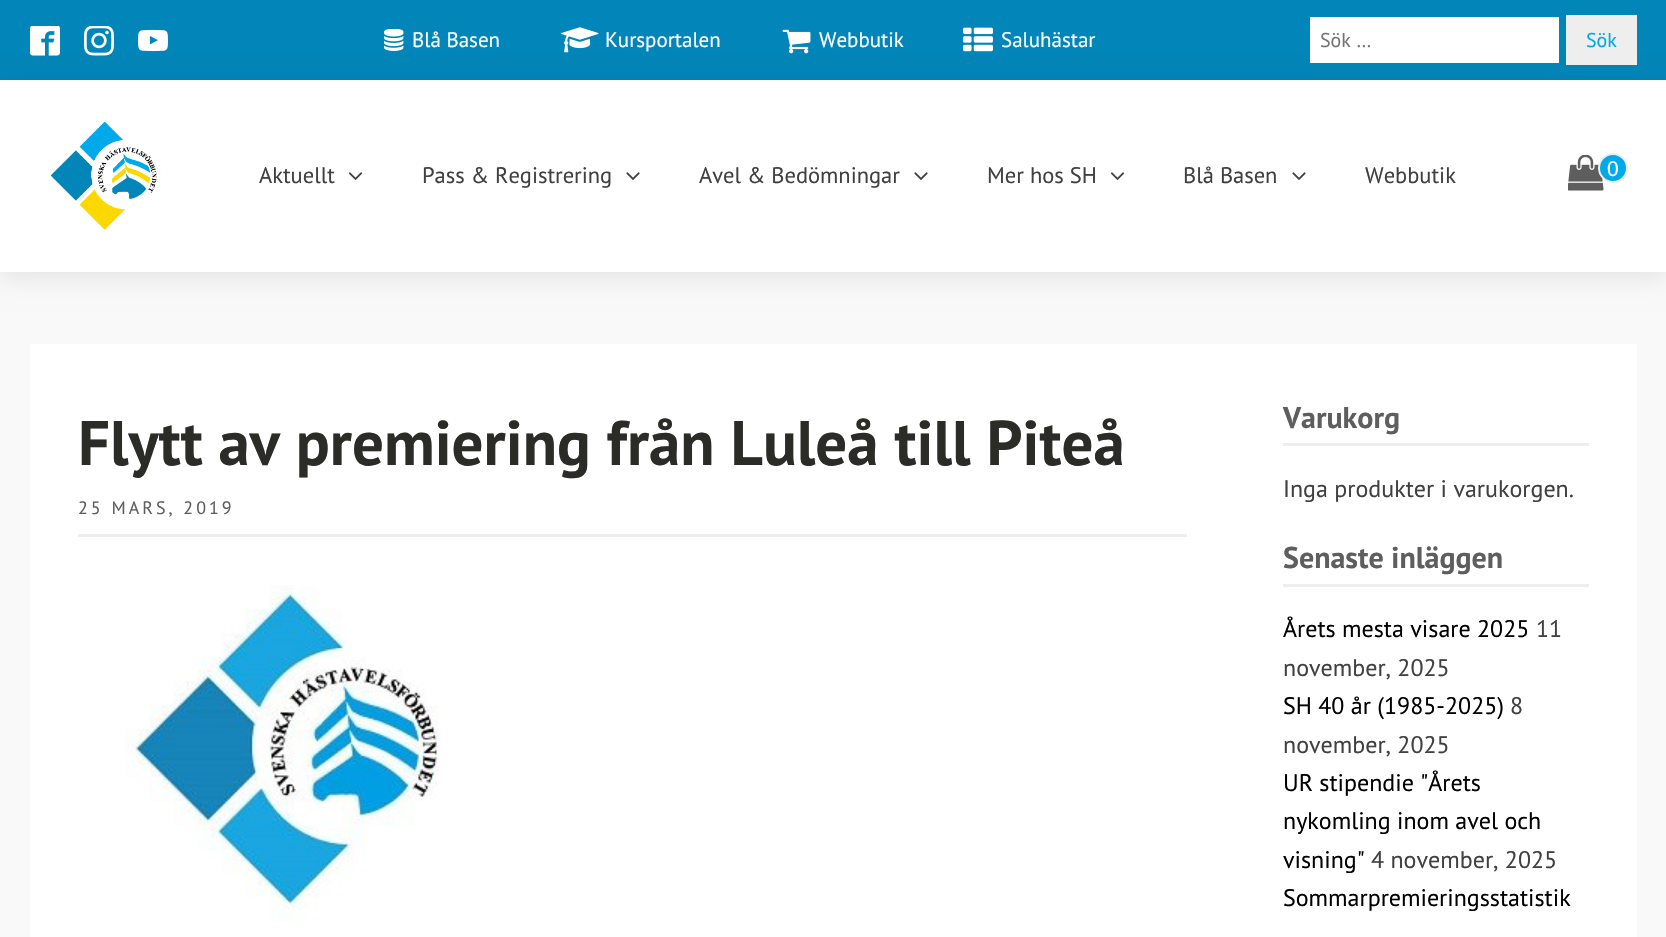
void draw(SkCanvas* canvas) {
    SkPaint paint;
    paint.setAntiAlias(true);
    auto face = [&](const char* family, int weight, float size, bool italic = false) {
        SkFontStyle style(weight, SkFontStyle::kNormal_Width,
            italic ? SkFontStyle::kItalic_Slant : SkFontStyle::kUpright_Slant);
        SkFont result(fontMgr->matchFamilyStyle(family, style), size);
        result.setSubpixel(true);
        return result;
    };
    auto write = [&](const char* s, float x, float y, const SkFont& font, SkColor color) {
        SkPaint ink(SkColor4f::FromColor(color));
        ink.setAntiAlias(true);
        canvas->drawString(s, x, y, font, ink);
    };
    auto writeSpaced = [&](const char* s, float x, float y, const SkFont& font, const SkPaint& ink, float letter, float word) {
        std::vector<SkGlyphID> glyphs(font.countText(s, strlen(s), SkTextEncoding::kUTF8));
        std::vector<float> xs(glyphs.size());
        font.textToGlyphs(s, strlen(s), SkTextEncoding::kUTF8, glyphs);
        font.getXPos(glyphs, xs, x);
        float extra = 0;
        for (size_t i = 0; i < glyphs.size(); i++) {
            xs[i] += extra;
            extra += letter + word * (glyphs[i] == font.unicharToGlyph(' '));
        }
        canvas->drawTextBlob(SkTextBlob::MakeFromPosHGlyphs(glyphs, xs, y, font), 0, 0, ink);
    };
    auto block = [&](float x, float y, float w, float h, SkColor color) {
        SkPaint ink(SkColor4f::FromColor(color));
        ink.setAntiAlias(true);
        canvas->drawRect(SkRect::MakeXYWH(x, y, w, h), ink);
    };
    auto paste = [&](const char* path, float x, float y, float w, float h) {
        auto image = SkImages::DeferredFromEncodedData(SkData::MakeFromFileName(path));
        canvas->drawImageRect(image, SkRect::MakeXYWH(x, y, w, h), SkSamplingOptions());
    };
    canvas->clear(SkColorSetRGB(249, 249, 250));
    block(0, 0, 1666, 80, SkColorSetRGB(2, 133, 184));
    paint.setColor(SkColorSetARGB(20, 0, 0, 0));
    paint.setMaskFilter(SkMaskFilter::MakeBlur(kNormal_SkBlurStyle, 11));
    canvas->drawRect(SkRect::MakeXYWH(0, 87, 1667, 192), paint);
    paint.setMaskFilter(nullptr);
    paste("pic1.png", 30, 26, 30, 30);
    paste("pic2.png", 84, 26, 30, 30);
    paste("pic3.png", 138, 29, 30, 23);
    paste("pic4.png", 384, 29, 20, 22);
    auto kFont1 = face("PT Sans", 400, 21);
    write("Blå Basen", 412, 47, kFont1, SK_ColorWHITE);
    paste("pic5.png", 561, 27, 38, 26);
    write("Kursportalen", 605, 47, kFont1, SK_ColorWHITE);
    paste("pic6.png", 782, 29, 29, 25);
    write("Webbutik", 819, 47, kFont1, SK_ColorWHITE);
    paste("pic7.png", 963, 27, 30, 25);
    write("Saluhästar", 1001, 47, kFont1, SK_ColorWHITE);
    block(1310, 17, 249, 46, SK_ColorWHITE);
    auto kFont2 = face("PT Sans", 400, 20);
    write("Sök …", 1320, 47, kFont2, SkColorSetRGB(117, 117, 117));
    block(1566, 15, 71, 50, SkColorSetRGB(238, 238, 238));
    write("Sök", 1586, 47, kFont2, SkColorSetRGB(0, 169, 233));
    block(0, 80, 1666, 192, SK_ColorWHITE);
    paste("pic8.png", 50, 121, 108, 109);
    auto kFont3 = face("PT Sans", 400, 22.5f);
    write("Aktuellt", 259, 183, kFont3, SkColorSetRGB(64, 64, 64));
    paste("pic9.png", 348, 172, 15, 8);
    write("Pass & Registrering", 422, 183, kFont3, SkColorSetRGB(64, 64, 64));
    paste("pic10.png", 626, 172, 14, 8);
    write("Avel & Bedömningar", 699, 183, kFont3, SkColorSetRGB(64, 64, 64));
    paste("pic10.png", 914, 172, 14, 8);
    write("Mer hos SH", 987, 183, kFont3, SkColorSetRGB(64, 64, 64));
    paste("pic9.png", 1110, 172, 15, 8);
    write("Blå Basen", 1183, 183, kFont3, SkColorSetRGB(64, 64, 64));
    paste("pic10.png", 1292, 172, 14, 8);
    write("Webbutik", 1365, 183, kFont3, SkColorSetRGB(64, 64, 64));
    paste("pic11.png", 1568, 155, 36, 36);
    paint.setColor(SkColorSetRGB(0, 169, 233));
    canvas->drawCircle(1613, 168, 14, paint);
    paint.setStyle(SkPaint::kStroke_Style);
    paint.setStrokeWidth(2);
    paint.setColor(SkColorSetRGB(238, 238, 238));
    canvas->drawCircle(1613, 168, 14, paint);
    auto kFont4 = face("Liberation Sans", 400, 21);
    write("0", 1607, 176, kFont4, SK_ColorWHITE);
    block(30, 344, 1607, 593, SK_ColorWHITE);
    auto kFont5 = face("PT Sans", 700, 63);
    write("Flytt av premiering från Luleå till Piteå", 78, 465, kFont5, SkColorSetRGB(43, 44, 39));
    block(78, 534, 1109, 3, SkColorSetRGB(238, 238, 238));
    auto kFont6 = face("PT Sans", 400, 18);
    paint.setStyle(SkPaint::kFill_Style);
    paint.setColor(SkColorSetRGB(94, 94, 94));
    writeSpaced("25 MARS, 2019", 78, 514, kFont6, paint, 3, 0);
    paste("pic12.png", 125, 585, 314, 336);
    block(1283, 443, 306, 3, SkColorSetRGB(238, 238, 238));
    auto kFont7 = face("PT Sans", 700, 30);
    write("Varukorg", 1283, 428, kFont7, SkColorSetRGB(94, 94, 94));
    auto kFont8 = face("PT Sans", 400, 24);
    write("Inga produkter i varukorgen.", 1283, 497, kFont8, SkColorSetRGB(64, 64, 64));
    block(1283, 584, 306, 3, SkColorSetRGB(238, 238, 238));
    write("Senaste inläggen", 1283, 568, kFont7, SkColorSetRGB(94, 94, 94));
    write("Årets mesta visare 2025", 1283, 637, kFont8, SK_ColorBLACK);
    write("11", 1536, 637, kFont8, SkColorSetRGB(64, 64, 64));
    write("november, 2025", 1283, 676, kFont8, SkColorSetRGB(64, 64, 64));
    write("SH 40 år (1985-2025)", 1283, 714, kFont8, SK_ColorBLACK);
    write("8", 1510, 714, kFont8, SkColorSetRGB(64, 64, 64));
    write("november, 2025", 1283, 753, kFont8, SkColorSetRGB(64, 64, 64));
    write("UR stipendie \"Årets", 1283, 791, kFont8, SK_ColorBLACK);
    write("nykomling inom avel och", 1283, 829, kFont8, SK_ColorBLACK);
    write("visning\"", 1283, 868, kFont8, SK_ColorBLACK);
    write("4 november, 2025", 1371, 868, kFont8, SkColorSetRGB(64, 64, 64));
    write("Sommarpremieringsstatistik", 1283, 906, kFont8, SK_ColorBLACK);
}
